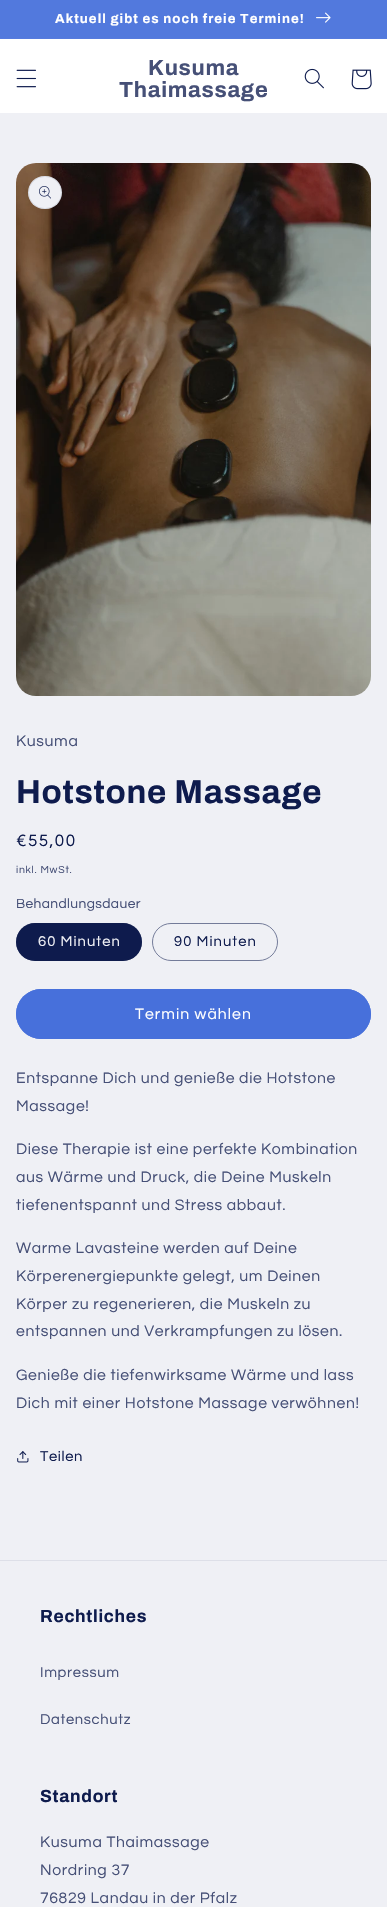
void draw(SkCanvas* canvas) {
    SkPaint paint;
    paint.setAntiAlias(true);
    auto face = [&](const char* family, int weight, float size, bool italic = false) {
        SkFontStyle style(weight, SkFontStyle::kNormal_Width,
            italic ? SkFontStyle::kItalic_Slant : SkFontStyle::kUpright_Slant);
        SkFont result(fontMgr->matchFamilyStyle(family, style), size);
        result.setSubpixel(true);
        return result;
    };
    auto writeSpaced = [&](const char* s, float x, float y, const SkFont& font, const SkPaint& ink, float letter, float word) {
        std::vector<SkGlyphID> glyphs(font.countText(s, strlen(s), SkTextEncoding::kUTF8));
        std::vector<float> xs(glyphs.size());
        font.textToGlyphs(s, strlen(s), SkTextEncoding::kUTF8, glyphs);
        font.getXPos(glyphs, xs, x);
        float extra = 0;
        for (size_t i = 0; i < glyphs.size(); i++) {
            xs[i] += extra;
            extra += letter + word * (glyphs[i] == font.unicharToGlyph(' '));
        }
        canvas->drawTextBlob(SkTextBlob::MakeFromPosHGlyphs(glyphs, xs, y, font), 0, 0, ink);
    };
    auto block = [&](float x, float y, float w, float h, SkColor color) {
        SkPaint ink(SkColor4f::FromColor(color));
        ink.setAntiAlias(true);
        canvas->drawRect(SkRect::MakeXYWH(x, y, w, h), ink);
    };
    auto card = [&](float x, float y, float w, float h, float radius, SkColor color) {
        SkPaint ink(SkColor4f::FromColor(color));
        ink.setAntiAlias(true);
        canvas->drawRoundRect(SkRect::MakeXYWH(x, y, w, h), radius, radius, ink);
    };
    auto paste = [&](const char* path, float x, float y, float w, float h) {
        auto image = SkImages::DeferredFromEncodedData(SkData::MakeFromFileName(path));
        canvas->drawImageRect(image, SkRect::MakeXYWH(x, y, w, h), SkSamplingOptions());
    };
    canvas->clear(SkColorSetRGB(239, 240, 245));
    block(0, 38, 387, 1, SkColorSetRGB(86, 123, 222));
    block(0, 0, 387, 38, SkColorSetRGB(82, 121, 221));
    auto kFont1 = face("Archivo", 700, 13.25f);
    paint.setColor(SK_ColorWHITE);
    writeSpaced("Aktuell gibt es noch freie Termine!", 55, 23, kFont1, paint, 1.05f, 0);
    paste("pic1.png", 316, 12, 15, 11);
    block(0, 39, 387, 74, SK_ColorWHITE);
    paste("pic2.png", 16, 69, 20, 19);
    auto kFont2 = face("Archivo", 700, 22);
    paint.setColor(SkColorSetRGB(70, 80, 119));
    writeSpaced("Kusuma", 148, 75, kFont2, paint, 0.7f, 0);
    writeSpaced("Thaimassage", 119, 97, kFont2, paint, 0.7f, 0);
    paste("pic3.png", 304, 68, 20, 21);
    paste("pic4.png", 351, 69, 21, 21);
    paste("pic5.png", 16, 163, 355, 533);
    card(28, 176, 34, 33, 16.5f, SkColorSetRGB(239, 240, 245));
    paint.setStyle(SkPaint::kStroke_Style);
    paint.setStrokeWidth(1);
    paint.setColor(SkColorSetARGB(26, 14, 27, 77));
    canvas->drawRoundRect(SkRect::MakeXYWH(28.5f, 176.5f, 33, 32), 16, 16, paint);
    paste("pic6.png", 39, 186, 12, 13);
    auto kFont3 = face("Questrial", 400, 15.75f);
    paint.setStyle(SkPaint::kFill_Style);
    paint.setColor(SkColorSetRGB(70, 80, 119));
    writeSpaced("Kusuma", 16, 746, kFont3, paint, 0.65f, 0);
    auto kFont4 = face("Archivo", 700, 33);
    paint.setColor(SkColorSetRGB(14, 27, 77));
    writeSpaced("Hotstone Massage", 16, 803, kFont4, paint, 0.7f, 0);
    auto kFont5 = face("Questrial", 400, 17);
    writeSpaced("€55,00", 16, 846, kFont5, paint, 1.5f, 0);
    auto kFont6 = face("Questrial", 400, 10.5f);
    paint.setColor(SkColorSetRGB(70, 80, 119));
    writeSpaced("inkl. MwSt.", 16, 873, kFont6, paint, 0.75f, 0);
    auto kFont7 = face("Questrial", 400, 13.75f);
    writeSpaced("Behandlungsdauer", 16, 908, kFont7, paint, 0.4f, 0);
    card(16, 923, 126, 38, 19, SkColorSetRGB(14, 27, 77));
    paint.setStyle(SkPaint::kStroke_Style);
    paint.setColor(SkColorSetARGB(140, 14, 27, 77));
    canvas->drawRoundRect(SkRect::MakeXYWH(16.5f, 923.5f, 125, 37), 18.5f, 18.5f, paint);
    auto kFont8 = face("Questrial", 400, 14.75f);
    paint.setStyle(SkPaint::kFill_Style);
    paint.setColor(SkColorSetRGB(239, 240, 245));
    writeSpaced("60 Minuten", 38, 946, kFont8, paint, 1.05f, 0);
    paint.setStyle(SkPaint::kStroke_Style);
    paint.setColor(SkColorSetRGB(115, 123, 153));
    canvas->drawRoundRect(SkRect::MakeXYWH(152.5f, 923.5f, 125, 37), 18.5f, 18.5f, paint);
    paint.setStyle(SkPaint::kFill_Style);
    paint.setColor(SkColorSetRGB(14, 27, 77));
    writeSpaced("90 Minuten", 174, 946, kFont8, paint, 1.05f, 0);
    card(16, 989, 355, 50, 25, SkColorSetRGB(71, 112, 219));
    paint.setStyle(SkPaint::kStroke_Style);
    paint.setColor(SkColorSetRGB(71, 112, 219));
    canvas->drawRoundRect(SkRect::MakeXYWH(16.5f, 989.5f, 354, 49), 24.5f, 24.5f, paint);
    paint.setStyle(SkPaint::kFill_Style);
    paint.setColor(SK_ColorWHITE);
    writeSpaced("Termin wählen", 135, 1019, kFont3, paint, 1.05f, 0);
    paint.setColor(SkColorSetRGB(70, 80, 119));
    writeSpaced("Entspanne Dich und genieße die Hotstone", 16, 1083, kFont3, paint, 0.65f, 0);
    writeSpaced("Massage!", 16, 1111, kFont3, paint, 0.65f, 0);
    writeSpaced("Diese Therapie ist eine perfekte Kombination", 16, 1154, kFont3, paint, 0.65f, 0);
    writeSpaced("aus Wärme und Druck, die Deine Muskeln", 16, 1182, kFont3, paint, 0.65f, 0);
    writeSpaced("tiefenentspannt und Stress abbaut.", 16, 1210, kFont3, paint, 0.65f, 0);
    writeSpaced("Warme Lavasteine werden auf Deine", 16, 1253, kFont3, paint, 0.65f, 0);
    writeSpaced("Körperenergiepunkte gelegt, um Deinen", 16, 1281, kFont3, paint, 0.65f, 0);
    writeSpaced("Körper zu regenerieren, die Muskeln zu", 16, 1309, kFont3, paint, 0.65f, 0);
    writeSpaced("entspannen und Verkrampfungen zu lösen.", 16, 1336, kFont3, paint, 0.65f, 0);
    writeSpaced("Genieße die tiefenwirksame Wärme und lass", 16, 1380, kFont3, paint, 0.65f, 0);
    writeSpaced("Dich mit einer Hotstone Massage verwöhnen!", 16, 1408, kFont3, paint, 0.65f, 0);
    paste("pic7.png", 17, 1451, 12, 12);
    paint.setColor(SkColorSetRGB(14, 27, 77));
    writeSpaced("Teilen", 40, 1461, kFont8, paint, 0.65f, 0);
    block(0, 1560, 387, 1, SkColorSetRGB(221, 223, 232));
    auto kFont9 = face("Archivo", 700, 17.5f);
    writeSpaced("Rechtliches", 40, 1622, kFont9, paint, 0.7f, 0);
    paint.setColor(SkColorSetRGB(70, 80, 119));
    writeSpaced("Impressum", 40, 1677, kFont8, paint, 0.65f, 0);
    writeSpaced("Datenschutz", 40, 1724, kFont8, paint, 0.65f, 0);
    paint.setColor(SkColorSetRGB(14, 27, 77));
    writeSpaced("Standort", 40, 1802, kFont9, paint, 0.7f, 0);
    paint.setColor(SkColorSetRGB(70, 80, 119));
    writeSpaced("Kusuma Thaimassage", 40, 1847, kFont3, paint, 0.65f, 0);
    writeSpaced("Nordring 37", 40, 1875, kFont3, paint, 0.65f, 0);
    writeSpaced("76829 Landau in der Pfalz", 40, 1903, kFont3, paint, 0.65f, 0);
}
